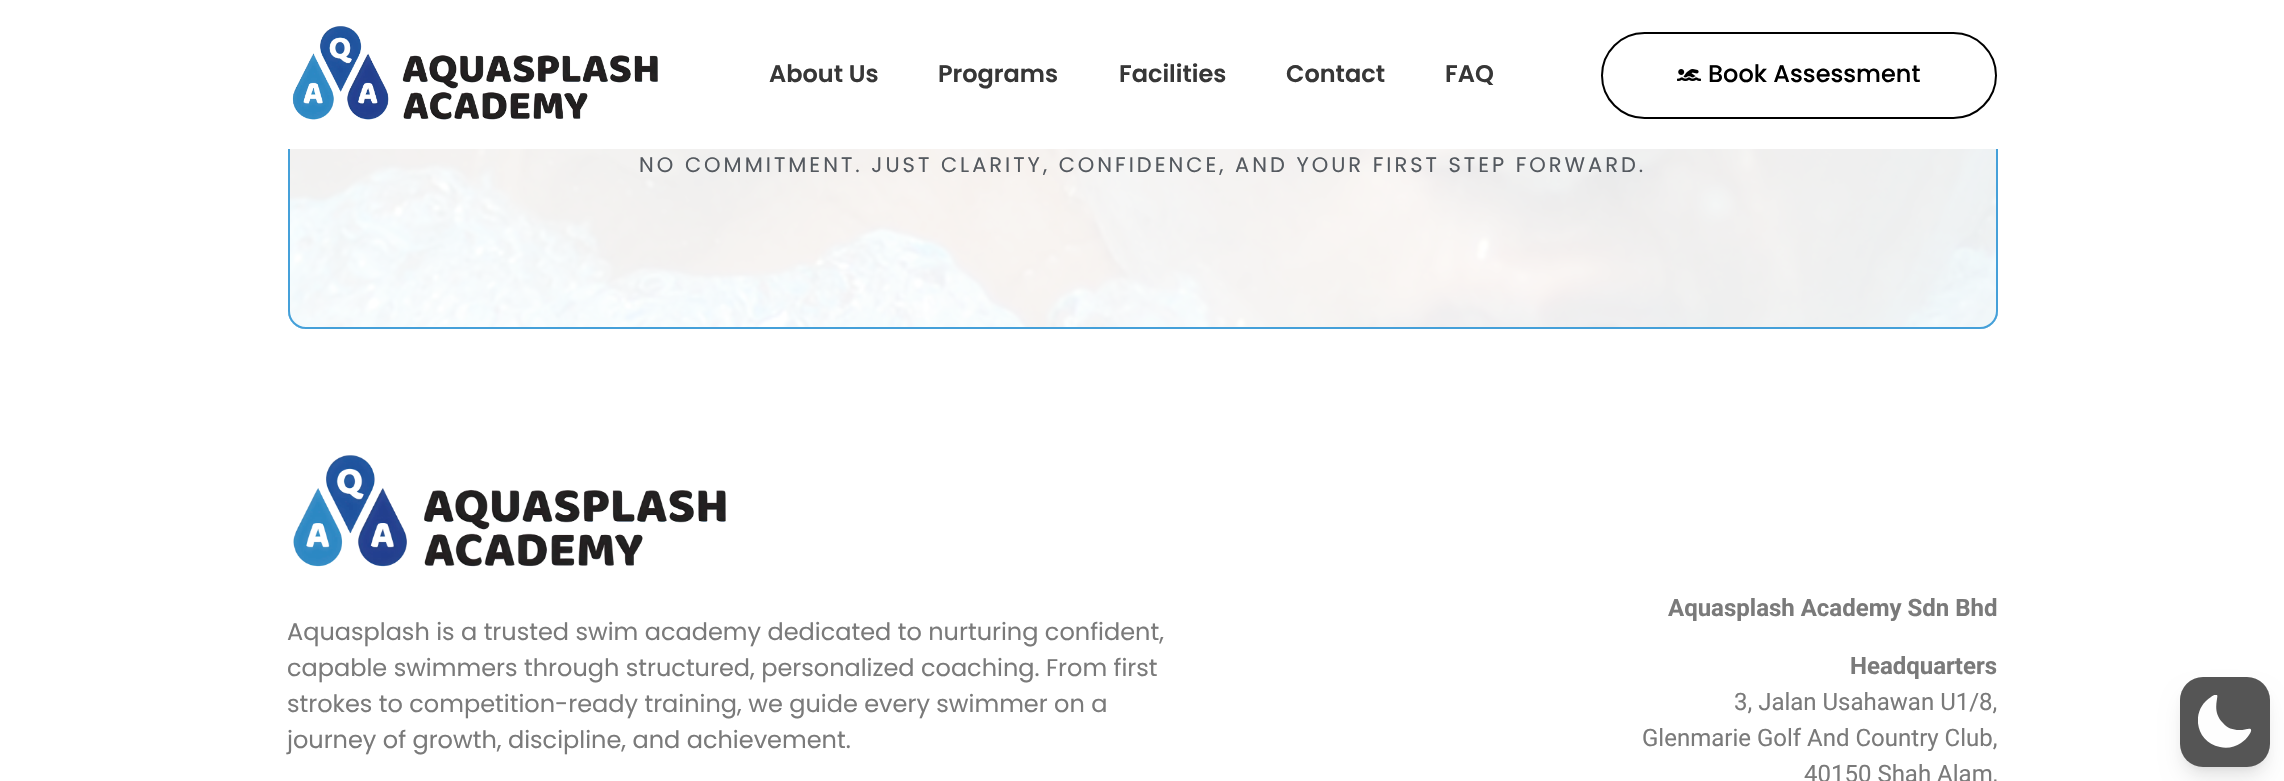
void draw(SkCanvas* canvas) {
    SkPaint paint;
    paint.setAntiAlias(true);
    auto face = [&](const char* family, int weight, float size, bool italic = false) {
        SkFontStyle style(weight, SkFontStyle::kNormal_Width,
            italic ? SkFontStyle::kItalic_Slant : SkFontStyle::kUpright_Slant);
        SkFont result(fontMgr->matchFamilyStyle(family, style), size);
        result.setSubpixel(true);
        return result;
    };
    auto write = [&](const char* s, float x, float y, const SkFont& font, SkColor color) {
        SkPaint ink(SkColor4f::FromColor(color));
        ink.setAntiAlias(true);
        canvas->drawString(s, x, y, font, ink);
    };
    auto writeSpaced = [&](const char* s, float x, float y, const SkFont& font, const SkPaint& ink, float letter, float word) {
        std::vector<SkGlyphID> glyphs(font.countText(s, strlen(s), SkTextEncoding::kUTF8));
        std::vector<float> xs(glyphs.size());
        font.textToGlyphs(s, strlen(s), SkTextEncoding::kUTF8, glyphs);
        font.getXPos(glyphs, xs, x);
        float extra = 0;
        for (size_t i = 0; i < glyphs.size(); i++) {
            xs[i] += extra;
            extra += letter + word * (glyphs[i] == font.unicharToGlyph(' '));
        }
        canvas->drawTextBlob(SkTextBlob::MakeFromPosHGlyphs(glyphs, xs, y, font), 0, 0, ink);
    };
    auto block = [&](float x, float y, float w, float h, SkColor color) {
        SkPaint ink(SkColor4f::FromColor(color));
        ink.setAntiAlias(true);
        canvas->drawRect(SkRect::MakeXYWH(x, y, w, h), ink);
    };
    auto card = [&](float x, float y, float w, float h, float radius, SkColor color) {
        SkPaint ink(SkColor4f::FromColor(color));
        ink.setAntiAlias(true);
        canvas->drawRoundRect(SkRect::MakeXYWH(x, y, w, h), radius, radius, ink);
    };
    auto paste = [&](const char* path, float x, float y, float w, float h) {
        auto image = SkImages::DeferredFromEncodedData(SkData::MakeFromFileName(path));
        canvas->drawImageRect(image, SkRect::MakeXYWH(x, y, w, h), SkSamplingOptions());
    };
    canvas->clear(SK_ColorWHITE);
    paste("pic3.png", 288, 149, 1710, 178);
    paint.setStyle(SkPaint::kStroke_Style);
    paint.setStrokeWidth(2);
    paint.setColor(SkColorSetRGB(51, 151, 213));
    canvas->drawRoundRect(SkRect::MakeXYWH(289, -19, 1708, 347), 17, 17, paint);
    card(288, -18, 1710, 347, 18, SkColorSetARGB(230, 255, 255, 255));
    paint.setColor(SkColorSetARGB(230, 51, 151, 213));
    canvas->drawRoundRect(SkRect::MakeXYWH(289, -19, 1708, 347), 17, 17, paint);
    block(288, 0, 1710, 149, SK_ColorWHITE);
    paste("pic1.png", 292, 26, 366, 94);
    auto kFont1 = face("Poppins", 600, 24);
    write("About Us", 769, 82, kFont1, SkColorSetRGB(55, 55, 55));
    write("Programs", 938, 82, kFont1, SkColorSetRGB(55, 55, 55));
    write("Facilities", 1119, 82, kFont1, SkColorSetRGB(55, 55, 55));
    write("Contact", 1286, 82, kFont1, SkColorSetRGB(55, 55, 55));
    write("FAQ", 1445, 82, kFont1, SkColorSetRGB(55, 55, 55));
    paint.setColor(SK_ColorBLACK);
    canvas->drawRoundRect(SkRect::MakeXYWH(1602, 33, 394, 85), 42.5f, 42.5f, paint);
    paste("pic2.png", 1677, 69, 24, 12);
    auto kFont2 = face("Poppins", 500, 24);
    write("Book Assessment", 1708, 82, kFont2, SK_ColorBLACK);
    auto kFont3 = face("Poppins", 400, 21);
    paint.setStyle(SkPaint::kFill_Style);
    paint.setColor(SkColorSetRGB(84, 89, 95));
    writeSpaced("NO COMMITMENT. JUST CLARITY, CONFIDENCE, AND YOUR FIRST STEP FORWARD.", 639, 172, kFont3, paint, 3, 0);
    paste("pic4.png", 293, 455, 433, 112);
    auto kFont4 = face("Poppins", 400, 24);
    write("Aquasplash is a trusted swim academy dedicated to nurturing confident,", 287, 640, kFont4, SkColorSetRGB(122, 122, 122));
    write("capable swimmers through structured, personalized coaching. From first", 287, 676, kFont4, SkColorSetRGB(122, 122, 122));
    write("strokes to competition-ready training, we guide every swimmer on a", 287, 712, kFont4, SkColorSetRGB(122, 122, 122));
    write("journey of growth, discipline, and achievement.", 287, 748, kFont4, SkColorSetRGB(122, 122, 122));
    auto kFont5 = face("Roboto", 700, 24);
    write("Aquasplash Academy Sdn Bhd", 1668, 616, kFont5, SkColorSetRGB(122, 122, 122));
    write("Headquarters", 1850, 674, kFont5, SkColorSetRGB(122, 122, 122));
    auto kFont6 = face("Roboto", 400, 24);
    write("3, Jalan Usahawan U1/8,", 1734, 710, kFont6, SkColorSetRGB(122, 122, 122));
    write("Glenmarie Golf And Country Club,", 1642, 746, kFont6, SkColorSetRGB(122, 122, 122));
    write("40150 Shah Alam,", 1804, 782, kFont6, SkColorSetRGB(122, 122, 122));
    paint.setColor(SkColorSetARGB(26, 0, 0, 0));
    paint.setMaskFilter(SkMaskFilter::MakeBlur(kNormal_SkBlurStyle, 4.5f));
    canvas->drawRoundRect(SkRect::MakeXYWH(2186, 689, 78, 78), 17, 17, paint);
    paint.setMaskFilter(nullptr);
    paint.setMaskFilter(SkMaskFilter::MakeBlur(kNormal_SkBlurStyle, 11));
    canvas->drawRoundRect(SkRect::MakeXYWH(2184, 696, 81, 81), 18, 18, paint);
    paint.setMaskFilter(nullptr);
    card(2180, 677, 90, 90, 23, SkColorSetRGB(85, 85, 85));
    canvas->save();
    canvas->clipRect(SkRect::MakeXYWH(2198, 695, 54, 54));
    paint.setColor(SkColorSetRGB(254, 254, 254));
    canvas->drawPath(SkPathBuilder(SkPathFillType::kEvenOdd).moveTo(2217, 695).cubicTo(2219, 697, 2211, 711, 2223, 723).cubicTo(2227, 728, 2233, 730, 2239, 730).cubicTo(2244, 731, 2256, 724, 2249, 735).cubicTo(2247, 738, 2244, 741, 2241, 743).cubicTo(2235, 747, 2227, 749, 2220, 747).cubicTo(2195, 742, 2190, 710, 2211, 697).cubicTo(2212, 696, 2215, 694, 2217, 695).close().detach(), paint);
    canvas->restore();
}
